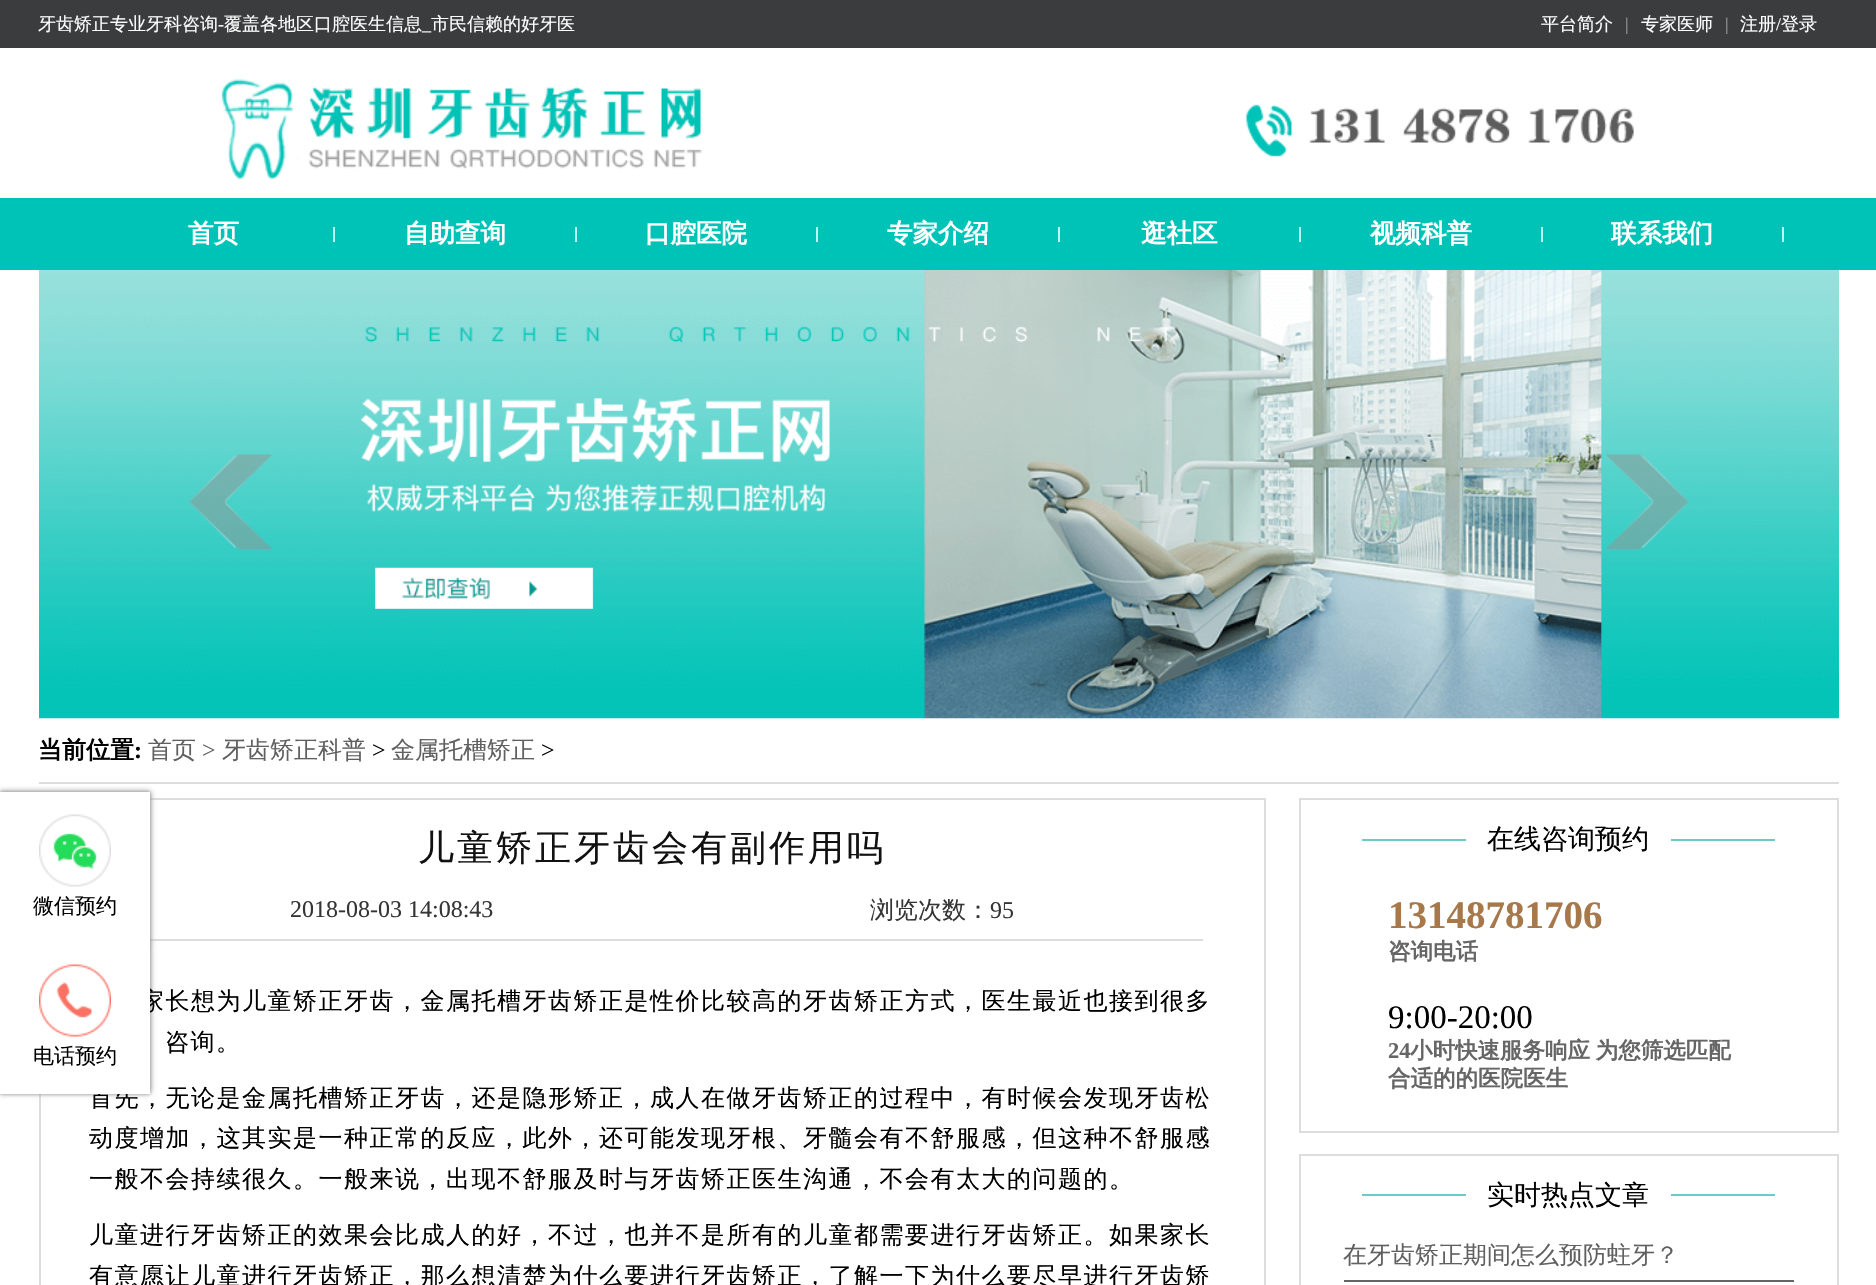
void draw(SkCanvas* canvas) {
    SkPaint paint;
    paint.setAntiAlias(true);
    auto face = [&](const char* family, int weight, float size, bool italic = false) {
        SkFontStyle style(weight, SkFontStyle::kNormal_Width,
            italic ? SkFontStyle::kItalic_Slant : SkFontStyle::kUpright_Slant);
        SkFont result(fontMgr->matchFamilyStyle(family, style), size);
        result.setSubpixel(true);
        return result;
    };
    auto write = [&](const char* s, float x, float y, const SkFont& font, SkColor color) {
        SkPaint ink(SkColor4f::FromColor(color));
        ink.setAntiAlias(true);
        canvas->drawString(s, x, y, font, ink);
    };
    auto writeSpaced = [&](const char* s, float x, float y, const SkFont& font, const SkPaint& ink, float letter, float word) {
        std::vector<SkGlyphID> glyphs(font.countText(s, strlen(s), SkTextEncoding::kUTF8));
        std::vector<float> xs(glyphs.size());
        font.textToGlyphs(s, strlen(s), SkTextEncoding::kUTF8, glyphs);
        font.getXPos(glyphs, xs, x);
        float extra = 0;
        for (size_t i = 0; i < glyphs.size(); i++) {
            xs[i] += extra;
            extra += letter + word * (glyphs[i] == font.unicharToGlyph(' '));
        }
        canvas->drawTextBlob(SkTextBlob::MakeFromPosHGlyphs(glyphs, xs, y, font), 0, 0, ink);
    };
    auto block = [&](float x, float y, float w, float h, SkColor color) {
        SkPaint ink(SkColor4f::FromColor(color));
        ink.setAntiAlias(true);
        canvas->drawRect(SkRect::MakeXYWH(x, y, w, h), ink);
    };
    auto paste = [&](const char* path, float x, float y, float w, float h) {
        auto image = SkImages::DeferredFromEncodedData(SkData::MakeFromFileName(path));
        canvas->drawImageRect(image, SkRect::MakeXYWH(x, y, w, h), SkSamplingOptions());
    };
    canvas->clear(SK_ColorWHITE);
    block(0, 0, 1876, 48, SkColorSetRGB(59, 60, 62));
    auto kFont1 = face("WenQuanYi Zen Hei", 500, 18);
    write("牙齿矫正专业牙科咨询", 38, 30, kFont1, SK_ColorWHITE);
    auto kFont2 = face("Liberation Serif", 400, 18);
    write("-", 218, 30, kFont2, SK_ColorWHITE);
    write("覆盖各地区口腔医生信息", 224, 30, kFont1, SK_ColorWHITE);
    write("_", 422, 30, kFont2, SK_ColorWHITE);
    write("市民信赖的好牙医", 431, 30, kFont1, SK_ColorWHITE);
    write("平台简介", 1541, 30, kFont1, SK_ColorWHITE);
    write("|", 1625, 30, kFont2, SkColorSetRGB(158, 158, 158));
    write("专家医师", 1641, 30, kFont1, SK_ColorWHITE);
    write("|", 1725, 30, kFont2, SkColorSetRGB(158, 158, 158));
    write("注册", 1740, 30, kFont1, SK_ColorWHITE);
    write("/", 1776, 30, kFont2, SK_ColorWHITE);
    write("登录", 1781, 30, kFont1, SK_ColorWHITE);
    paste("pic1.png", 221, 79, 1413, 102);
    block(0, 198, 1876, 72, SkColorSetRGB(0, 195, 183));
    auto kFont3 = face("WenQuanYi Zen Hei", 700, 25.5f);
    write("首页", 188, 242, kFont3, SK_ColorWHITE);
    block(333, 227, 2, 15, SkColorSetRGB(182, 255, 251));
    write("自助查询", 404, 242, kFont3, SK_ColorWHITE);
    block(575, 227, 2, 15, SkColorSetRGB(182, 255, 251));
    write("口腔医院", 645, 242, kFont3, SK_ColorWHITE);
    block(816, 227, 2, 15, SkColorSetRGB(182, 255, 251));
    write("专家介绍", 887, 242, kFont3, SK_ColorWHITE);
    block(1058, 227, 2, 15, SkColorSetRGB(182, 255, 251));
    write("逛社区", 1141, 242, kFont3, SK_ColorWHITE);
    block(1299, 227, 2, 15, SkColorSetRGB(182, 255, 251));
    write("视频科普", 1370, 242, kFont3, SK_ColorWHITE);
    block(1541, 227, 2, 15, SkColorSetRGB(182, 255, 251));
    write("联系我们", 1611, 242, kFont3, SK_ColorWHITE);
    block(1782, 227, 2, 15, SkColorSetRGB(182, 255, 251));
    paste("pic2.png", 39, 270, 1800, 449);
    paste("pic3.png", 189, 454, 83, 95);
    paste("pic4.png", 1606, 454, 83, 95);
    block(39, 782, 1800, 2, SkColorSetRGB(221, 221, 221));
    auto kFont4 = face("WenQuanYi Zen Hei", 700, 24);
    write("当前位置", 38, 758, kFont4, SK_ColorBLACK);
    auto kFont5 = face("Liberation Serif", 700, 24);
    write(":", 134, 758, kFont5, SK_ColorBLACK);
    auto kFont6 = face("WenQuanYi Zen Hei", 500, 24);
    write("首页", 148, 758, kFont6, SkColorSetRGB(96, 96, 96));
    auto kFont7 = face("Liberation Serif", 400, 24);
    write(">", 202, 758, kFont7, SkColorSetRGB(96, 96, 96));
    write("牙齿矫正科普", 222, 758, kFont6, SkColorSetRGB(96, 96, 96));
    write(">", 372, 758, kFont7, SK_ColorBLACK);
    write("金属托槽矫正", 391, 758, kFont6, SkColorSetRGB(96, 96, 96));
    write(">", 541, 758, kFont7, SK_ColorBLACK);
    paint.setStyle(SkPaint::kStroke_Style);
    paint.setStrokeWidth(2);
    paint.setColor(SkColorSetRGB(221, 221, 221));
    canvas->drawRect(SkRect::MakeXYWH(40, 799, 1225, 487), paint);
    block(150, 939, 1053, 2, SkColorSetRGB(221, 221, 221));
    paint.setStyle(SkPaint::kFill_Style);
    paint.setColor(SkColorSetRGB(153, 153, 153));
    paint.setMaskFilter(SkMaskFilter::MakeBlur(kNormal_SkBlurStyle, 3));
    canvas->drawRect(SkRect::MakeXYWH(0, 792, 150, 300), paint);
    paint.setMaskFilter(nullptr);
    paint.setMaskFilter(SkMaskFilter::MakeBlur(kNormal_SkBlurStyle, 2));
    canvas->drawRect(SkRect::MakeXYWH(0, 792, 150, 152), paint);
    paint.setMaskFilter(nullptr);
    paint.setMaskFilter(SkMaskFilter::MakeBlur(kNormal_SkBlurStyle, 2));
    canvas->drawRect(SkRect::MakeXYWH(0, 942, 150, 152), paint);
    paint.setMaskFilter(nullptr);
    paint.setColor(SK_ColorBLACK);
    writeSpaced("家长想为儿童矫正牙齿，金属托槽牙齿矫正是性价比较高的牙齿矫正方式，医生最近也接到很多", 140, 1009, kFont6, paint, 1.5f, 0);
    writeSpaced("首先，无论是金属托槽矫正牙齿，还是隐形矫正，成人在做牙齿矫正的过程中，有时候会发现牙齿松", 89, 1106, kFont6, paint, 1.5f, 0);
    block(0, 792, 150, 300, SK_ColorWHITE);
    paste("pic5.png", 39, 814, 72, 73);
    auto kFont8 = face("WenQuanYi Zen Hei", 500, 21);
    write("微信预约", 33, 913, kFont8, SK_ColorBLACK);
    block(0, 1092, 150, 2, SK_ColorWHITE);
    paste("pic6.png", 39, 964, 72, 73);
    write("电话预约", 33, 1063, kFont8, SK_ColorBLACK);
    auto kFont9 = face("WenQuanYi Zen Hei", 500, 36);
    paint.setColor(SkColorSetRGB(17, 17, 17));
    writeSpaced("儿童矫正牙齿会有副作用吗", 418, 860, kFont9, paint, 3, 0);
    write("2018-08-03 14:08:43", 290, 917, kFont7, SkColorSetRGB(53, 53, 53));
    write("浏览次数：", 870, 918, kFont6, SkColorSetRGB(53, 53, 53));
    write("95", 990, 918, kFont7, SkColorSetRGB(53, 53, 53));
    paint.setColor(SK_ColorBLACK);
    writeSpaced("咨询。", 165, 1050, kFont6, paint, 1.5f, 0);
    writeSpaced("动度增加，这其实是一种正常的反应，此外，还可能发现牙根、牙髓会有不舒服感，但这种不舒服感", 89, 1146, kFont6, paint, 1.5f, 0);
    writeSpaced("一般不会持续很久。一般来说，出现不舒服及时与牙齿矫正医生沟通，不会有太大的问题的。", 89, 1187, kFont6, paint, 1.5f, 0);
    writeSpaced("儿童进行牙齿矫正的效果会比成人的好，不过，也并不是所有的儿童都需要进行牙齿矫正。如果家长", 89, 1243, kFont6, paint, 1.5f, 0);
    writeSpaced("有意愿让儿童进行牙齿矫正，那么想清楚为什么要进行牙齿矫正，了解一下为什么要尽早进行牙齿矫", 89, 1284, kFont6, paint, 1.5f, 0);
    paint.setStyle(SkPaint::kStroke_Style);
    paint.setColor(SkColorSetRGB(221, 221, 221));
    canvas->drawRect(SkRect::MakeXYWH(1300, 799, 538, 333), paint);
    block(1362, 839, 104, 2, SkColorSetRGB(107, 203, 202));
    auto kFont10 = face("WenQuanYi Zen Hei", 500, 27);
    write("在线咨询预约", 1487, 848, kFont10, SK_ColorBLACK);
    block(1671, 839, 104, 2, SkColorSetRGB(107, 203, 202));
    auto kFont11 = face("Liberation Serif", 700, 39);
    write("13148781706", 1388, 928, kFont11, SkColorSetRGB(167, 120, 74));
    auto kFont12 = face("WenQuanYi Zen Hei", 700, 22.5f);
    write("咨询电话", 1388, 959, kFont12, SkColorSetRGB(102, 102, 102));
    auto kFont13 = face("Liberation Serif", 400, 33);
    write("9:00-20:00", 1388, 1028, kFont13, SK_ColorBLACK);
    auto kFont14 = face("Liberation Serif", 700, 22.5f);
    write("24", 1388, 1058, kFont14, SkColorSetRGB(102, 102, 102));
    paint.setStyle(SkPaint::kFill_Style);
    paint.setColor(SkColorSetRGB(102, 102, 102));
    writeSpaced("小时快速服务响应 为您筛选匹配", 1410, 1058, kFont12, paint, 0, -1);
    write("合适的的医院医生", 1388, 1086, kFont12, SkColorSetRGB(102, 102, 102));
    paint.setStyle(SkPaint::kStroke_Style);
    paint.setColor(SkColorSetRGB(221, 221, 221));
    canvas->drawRect(SkRect::MakeXYWH(1300, 1155, 538, 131), paint);
    block(1362, 1194, 104, 2, SkColorSetRGB(107, 203, 202));
    write("实时热点文章", 1487, 1204, kFont10, SK_ColorBLACK);
    block(1671, 1194, 104, 2, SkColorSetRGB(107, 203, 202));
    block(1344, 1280, 450, 2, SkColorSetRGB(102, 102, 102));
    write("在牙齿矫正期间怎么预防蛀牙？", 1343, 1263, kFont6, SkColorSetRGB(96, 96, 96));
}
